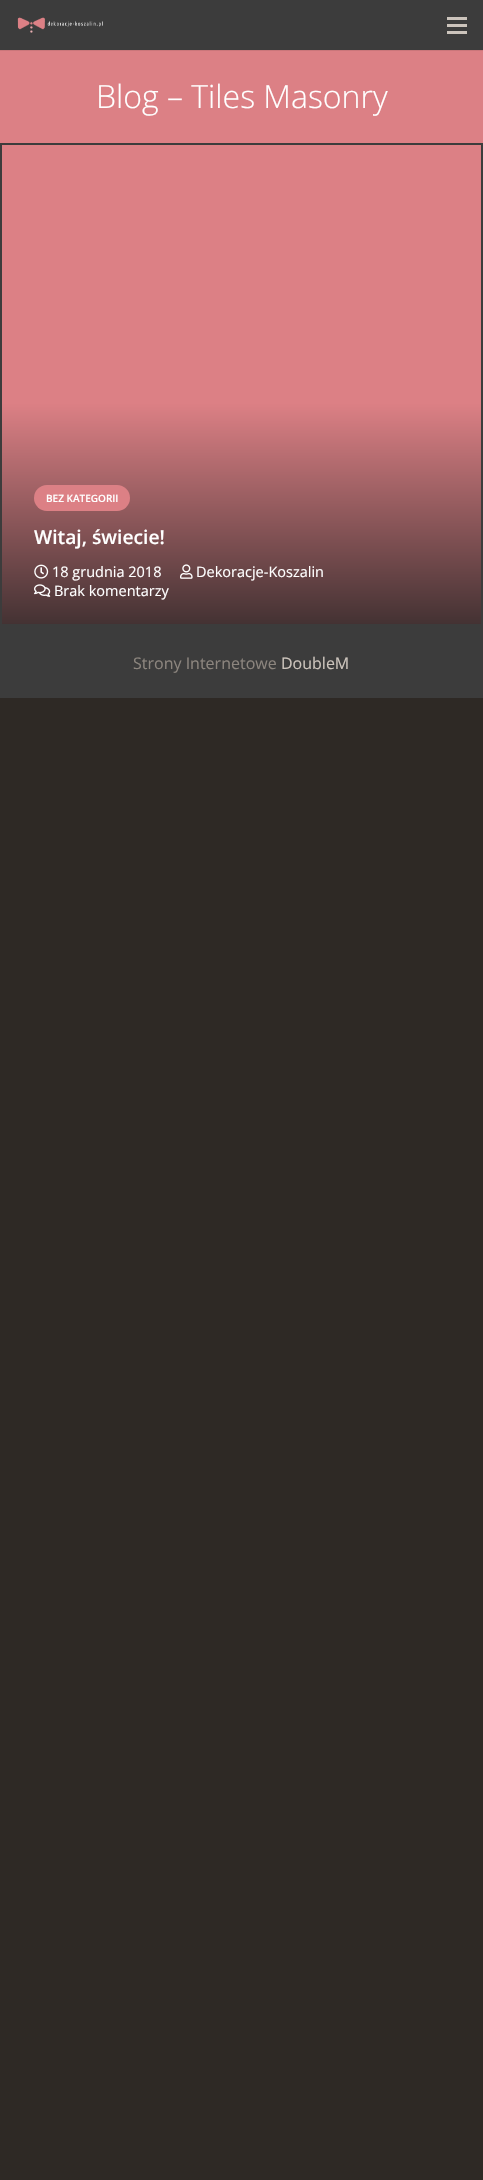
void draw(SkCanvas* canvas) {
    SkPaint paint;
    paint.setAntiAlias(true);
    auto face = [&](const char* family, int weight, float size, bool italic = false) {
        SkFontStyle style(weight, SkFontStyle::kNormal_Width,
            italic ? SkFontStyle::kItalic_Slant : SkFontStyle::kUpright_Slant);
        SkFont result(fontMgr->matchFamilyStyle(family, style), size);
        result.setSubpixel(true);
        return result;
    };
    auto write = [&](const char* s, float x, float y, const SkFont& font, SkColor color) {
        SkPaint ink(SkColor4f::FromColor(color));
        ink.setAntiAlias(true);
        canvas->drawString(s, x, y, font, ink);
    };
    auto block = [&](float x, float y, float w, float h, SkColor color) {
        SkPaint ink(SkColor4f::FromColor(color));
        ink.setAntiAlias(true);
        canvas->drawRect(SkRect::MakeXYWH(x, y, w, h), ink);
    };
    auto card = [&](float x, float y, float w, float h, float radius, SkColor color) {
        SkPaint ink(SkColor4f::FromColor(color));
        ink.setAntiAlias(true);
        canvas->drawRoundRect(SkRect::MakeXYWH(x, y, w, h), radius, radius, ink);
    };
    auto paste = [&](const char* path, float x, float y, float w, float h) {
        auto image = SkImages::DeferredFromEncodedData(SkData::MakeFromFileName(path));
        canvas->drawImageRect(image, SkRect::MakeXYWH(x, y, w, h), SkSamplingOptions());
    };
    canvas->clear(SkColorSetRGB(46, 41, 37));
    block(0, 143, 483, 555, SkColorSetRGB(60, 60, 60));
    block(0, 50, 483, 1, SkColorSetRGB(202, 118, 122));
    block(0, 0, 483, 50, SkColorSetRGB(60, 60, 60));
    paste("pic1.png", 17, 17, 86, 16);
    block(447, 24, 20, 3, SkColorSetRGB(204, 196, 188));
    block(447, 17, 20, 3, SkColorSetRGB(204, 196, 188));
    block(447, 31, 20, 3, SkColorSetRGB(204, 196, 188));
    block(0, 51, 483, 92, SkColorSetRGB(220, 128, 133));
    auto kFont1 = face("Open Sans", 300, 32);
    write("Blog – Tiles Masonry", 96, 108, kFont1, SK_ColorWHITE);
    block(2, 145, 479, 258, SkColorSetRGB(220, 128, 133));
    {
        const SkColor colors[] = {SkColorSetRGB(220, 128, 133), SkColorSetRGB(68, 50, 51)};
        const float stops[] = {0, 1};
        const SkPoint ends[] = {{242, 403}, {242, 624}};
        paint.setShader(SkGradientShader::MakeLinear(ends, colors, stops, 2, SkTileMode::kClamp));
        paint.setAlpha(255);
    }
    canvas->drawRect(SkRect::MakeXYWH(2, 403, 479, 221), paint);
    card(34, 485, 96, 26, 13, SkColorSetRGB(220, 128, 133));
    auto kFont2 = face("Open Sans", 600, 10);
    write("BEZ KATEGORII", 46, 502, kFont2, SK_ColorWHITE);
    auto kFont3 = face("Open Sans", 600, 19.25f);
    write("Witaj, świecie!", 34, 544, kFont3, SK_ColorWHITE);
    paste("pic2.png", 34, 564, 15, 15);
    auto kFont4 = face("Open Sans", 400, 14.5f);
    write("18 grudnia 2018", 52, 577, kFont4, SK_ColorWHITE);
    paste("pic3.png", 180, 564, 13, 15);
    write("Dekoracje-Koszalin", 196, 577, kFont4, SK_ColorWHITE);
    paste("pic4.png", 34, 584, 17, 13);
    write("Brak komentarzy", 54, 596, kFont4, SK_ColorWHITE);
    auto kFont5 = face("Open Sans", 400, 16);
    write("Strony Internetowe", 133, 669, kFont5, SkColorSetRGB(140, 133, 126));
    write("DoubleM", 281, 669, kFont5, SkColorSetRGB(204, 196, 188));
}
